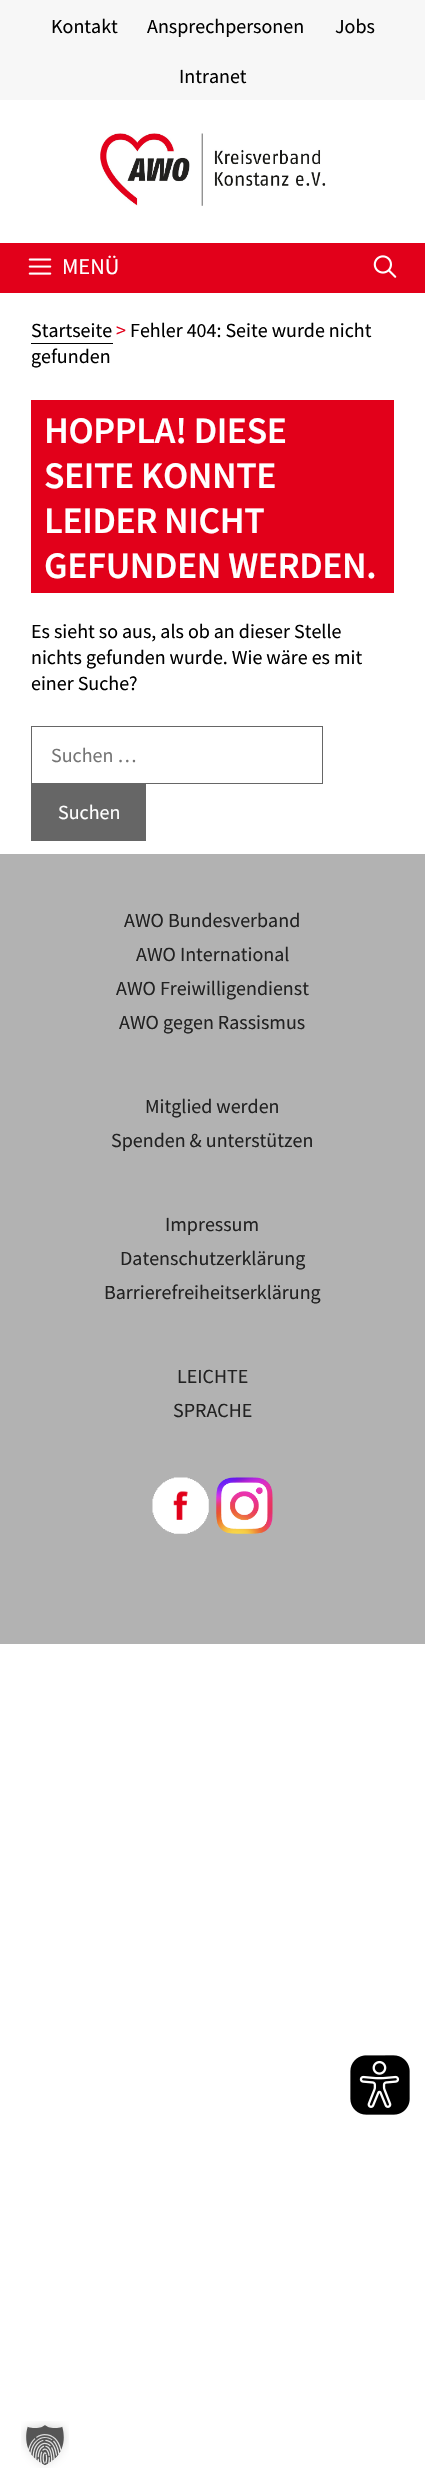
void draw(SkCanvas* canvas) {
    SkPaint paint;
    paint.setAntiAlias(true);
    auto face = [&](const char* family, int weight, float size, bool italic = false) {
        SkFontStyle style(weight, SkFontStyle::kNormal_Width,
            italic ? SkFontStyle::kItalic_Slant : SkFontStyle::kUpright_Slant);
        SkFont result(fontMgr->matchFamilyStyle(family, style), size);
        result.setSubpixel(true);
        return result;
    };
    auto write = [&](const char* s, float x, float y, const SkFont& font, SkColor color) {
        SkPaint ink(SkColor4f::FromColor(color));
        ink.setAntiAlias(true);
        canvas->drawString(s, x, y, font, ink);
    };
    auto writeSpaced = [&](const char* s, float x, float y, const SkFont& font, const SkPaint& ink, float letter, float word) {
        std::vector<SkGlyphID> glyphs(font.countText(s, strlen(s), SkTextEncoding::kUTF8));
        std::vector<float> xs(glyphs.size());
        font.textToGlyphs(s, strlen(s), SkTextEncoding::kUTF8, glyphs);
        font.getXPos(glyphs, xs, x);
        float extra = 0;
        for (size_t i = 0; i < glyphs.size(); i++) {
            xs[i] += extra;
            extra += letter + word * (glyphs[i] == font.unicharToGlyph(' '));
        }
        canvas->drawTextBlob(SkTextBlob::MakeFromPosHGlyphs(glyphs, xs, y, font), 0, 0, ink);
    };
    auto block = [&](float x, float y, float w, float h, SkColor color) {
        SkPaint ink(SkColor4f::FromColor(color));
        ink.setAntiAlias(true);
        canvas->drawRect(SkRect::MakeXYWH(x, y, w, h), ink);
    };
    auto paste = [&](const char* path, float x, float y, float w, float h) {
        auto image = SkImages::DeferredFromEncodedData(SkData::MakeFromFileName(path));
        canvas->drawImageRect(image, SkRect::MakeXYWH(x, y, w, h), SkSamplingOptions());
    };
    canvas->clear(SK_ColorWHITE);
    block(0, 0, 425, 100, SkColorSetRGB(247, 247, 247));
    auto kFont1 = face("Source Sans Pro", 400, 20);
    write("Kontakt", 51, 33, kFont1, SK_ColorBLACK);
    write("Ansprechpersonen", 147, 33, kFont1, SK_ColorBLACK);
    write("Jobs", 335, 33, kFont1, SK_ColorBLACK);
    write("Intranet", 179, 83, kFont1, SK_ColorBLACK);
    paste("pic1.png", 100, 133, 226, 73);
    block(0, 243, 425, 50, SkColorSetRGB(226, 0, 26));
    paste("pic2.png", 28, 258, 24, 17);
    auto kFont2 = face("Source Sans Pro", 400, 22.5f);
    write("MENÜ", 62, 274, kFont2, SK_ColorWHITE);
    paste("pic3.png", 373, 255, 24, 23);
    write("Startseite", 31, 337, kFont1, SK_ColorBLACK);
    block(31, 343, 82, 1, SK_ColorBLACK);
    write(">", 116, 337, kFont1, SkColorSetRGB(226, 0, 26));
    write("Fehler 404: Seite wurde nicht", 130, 337, kFont1, SK_ColorBLACK);
    write("gefunden", 31, 363, kFont1, SK_ColorBLACK);
    block(31, 400, 363, 193, SkColorSetRGB(226, 0, 26));
    auto kFont3 = face("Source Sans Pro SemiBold", 600, 37.5f);
    paint.setColor(SK_ColorWHITE);
    writeSpaced("HOPPLA! DIESE", 44, 443, kFont3, paint, -0.4f, 0);
    writeSpaced("SEITE KONNTE", 44, 488, kFont3, paint, -0.4f, 0);
    writeSpaced("LEIDER NICHT", 44, 533, kFont3, paint, -0.4f, 0);
    writeSpaced("GEFUNDEN WERDEN.", 44, 578, kFont3, paint, -0.4f, 0);
    write("Es sieht so aus, als ob an dieser Stelle", 31, 638, kFont1, SK_ColorBLACK);
    write("nichts gefunden wurde. Wie wäre es mit", 31, 664, kFont1, SK_ColorBLACK);
    write("einer Suche?", 31, 690, kFont1, SK_ColorBLACK);
    paint.setStyle(SkPaint::kStroke_Style);
    paint.setStrokeWidth(1);
    paint.setColor(SkColorSetRGB(102, 102, 102));
    canvas->drawRect(SkRect::MakeXYWH(31.5f, 726.5f, 291, 57), paint);
    write("Suchen …", 51, 762, kFont1, SkColorSetRGB(117, 117, 117));
    block(31, 784, 115, 57, SkColorSetRGB(102, 102, 102));
    write("Suchen", 58, 819, kFont1, SK_ColorWHITE);
    block(0, 854, 425, 790, SkColorSetRGB(178, 178, 178));
    write("AWO Bundesverband", 124, 927, kFont1, SkColorSetRGB(34, 34, 34));
    write("AWO International", 136, 961, kFont1, SkColorSetRGB(34, 34, 34));
    write("AWO Freiwilligendienst", 116, 995, kFont1, SkColorSetRGB(34, 34, 34));
    write("AWO gegen Rassismus", 119, 1029, kFont1, SkColorSetRGB(34, 34, 34));
    write("Mitglied werden", 145, 1113, kFont1, SkColorSetRGB(34, 34, 34));
    write("Spenden & unterstützen", 111, 1147, kFont1, SkColorSetRGB(34, 34, 34));
    write("Impressum", 165, 1231, kFont1, SkColorSetRGB(34, 34, 34));
    write("Datenschutzerklärung", 120, 1265, kFont1, SkColorSetRGB(34, 34, 34));
    write("Barrierefreiheitserklärung", 104, 1299, kFont1, SkColorSetRGB(34, 34, 34));
    write("LEICHTE", 177, 1383, kFont1, SkColorSetRGB(34, 34, 34));
    write("SPRACHE", 173, 1417, kFont1, SkColorSetRGB(34, 34, 34));
    paste("pic4.png", 152, 1477, 57, 57);
    paste("pic5.png", 216, 1477, 57, 57);
    paste("pic6.png", 350, 2055, 60, 60);
    paste("pic7.png", 21, 2421, 48, 47);
}
